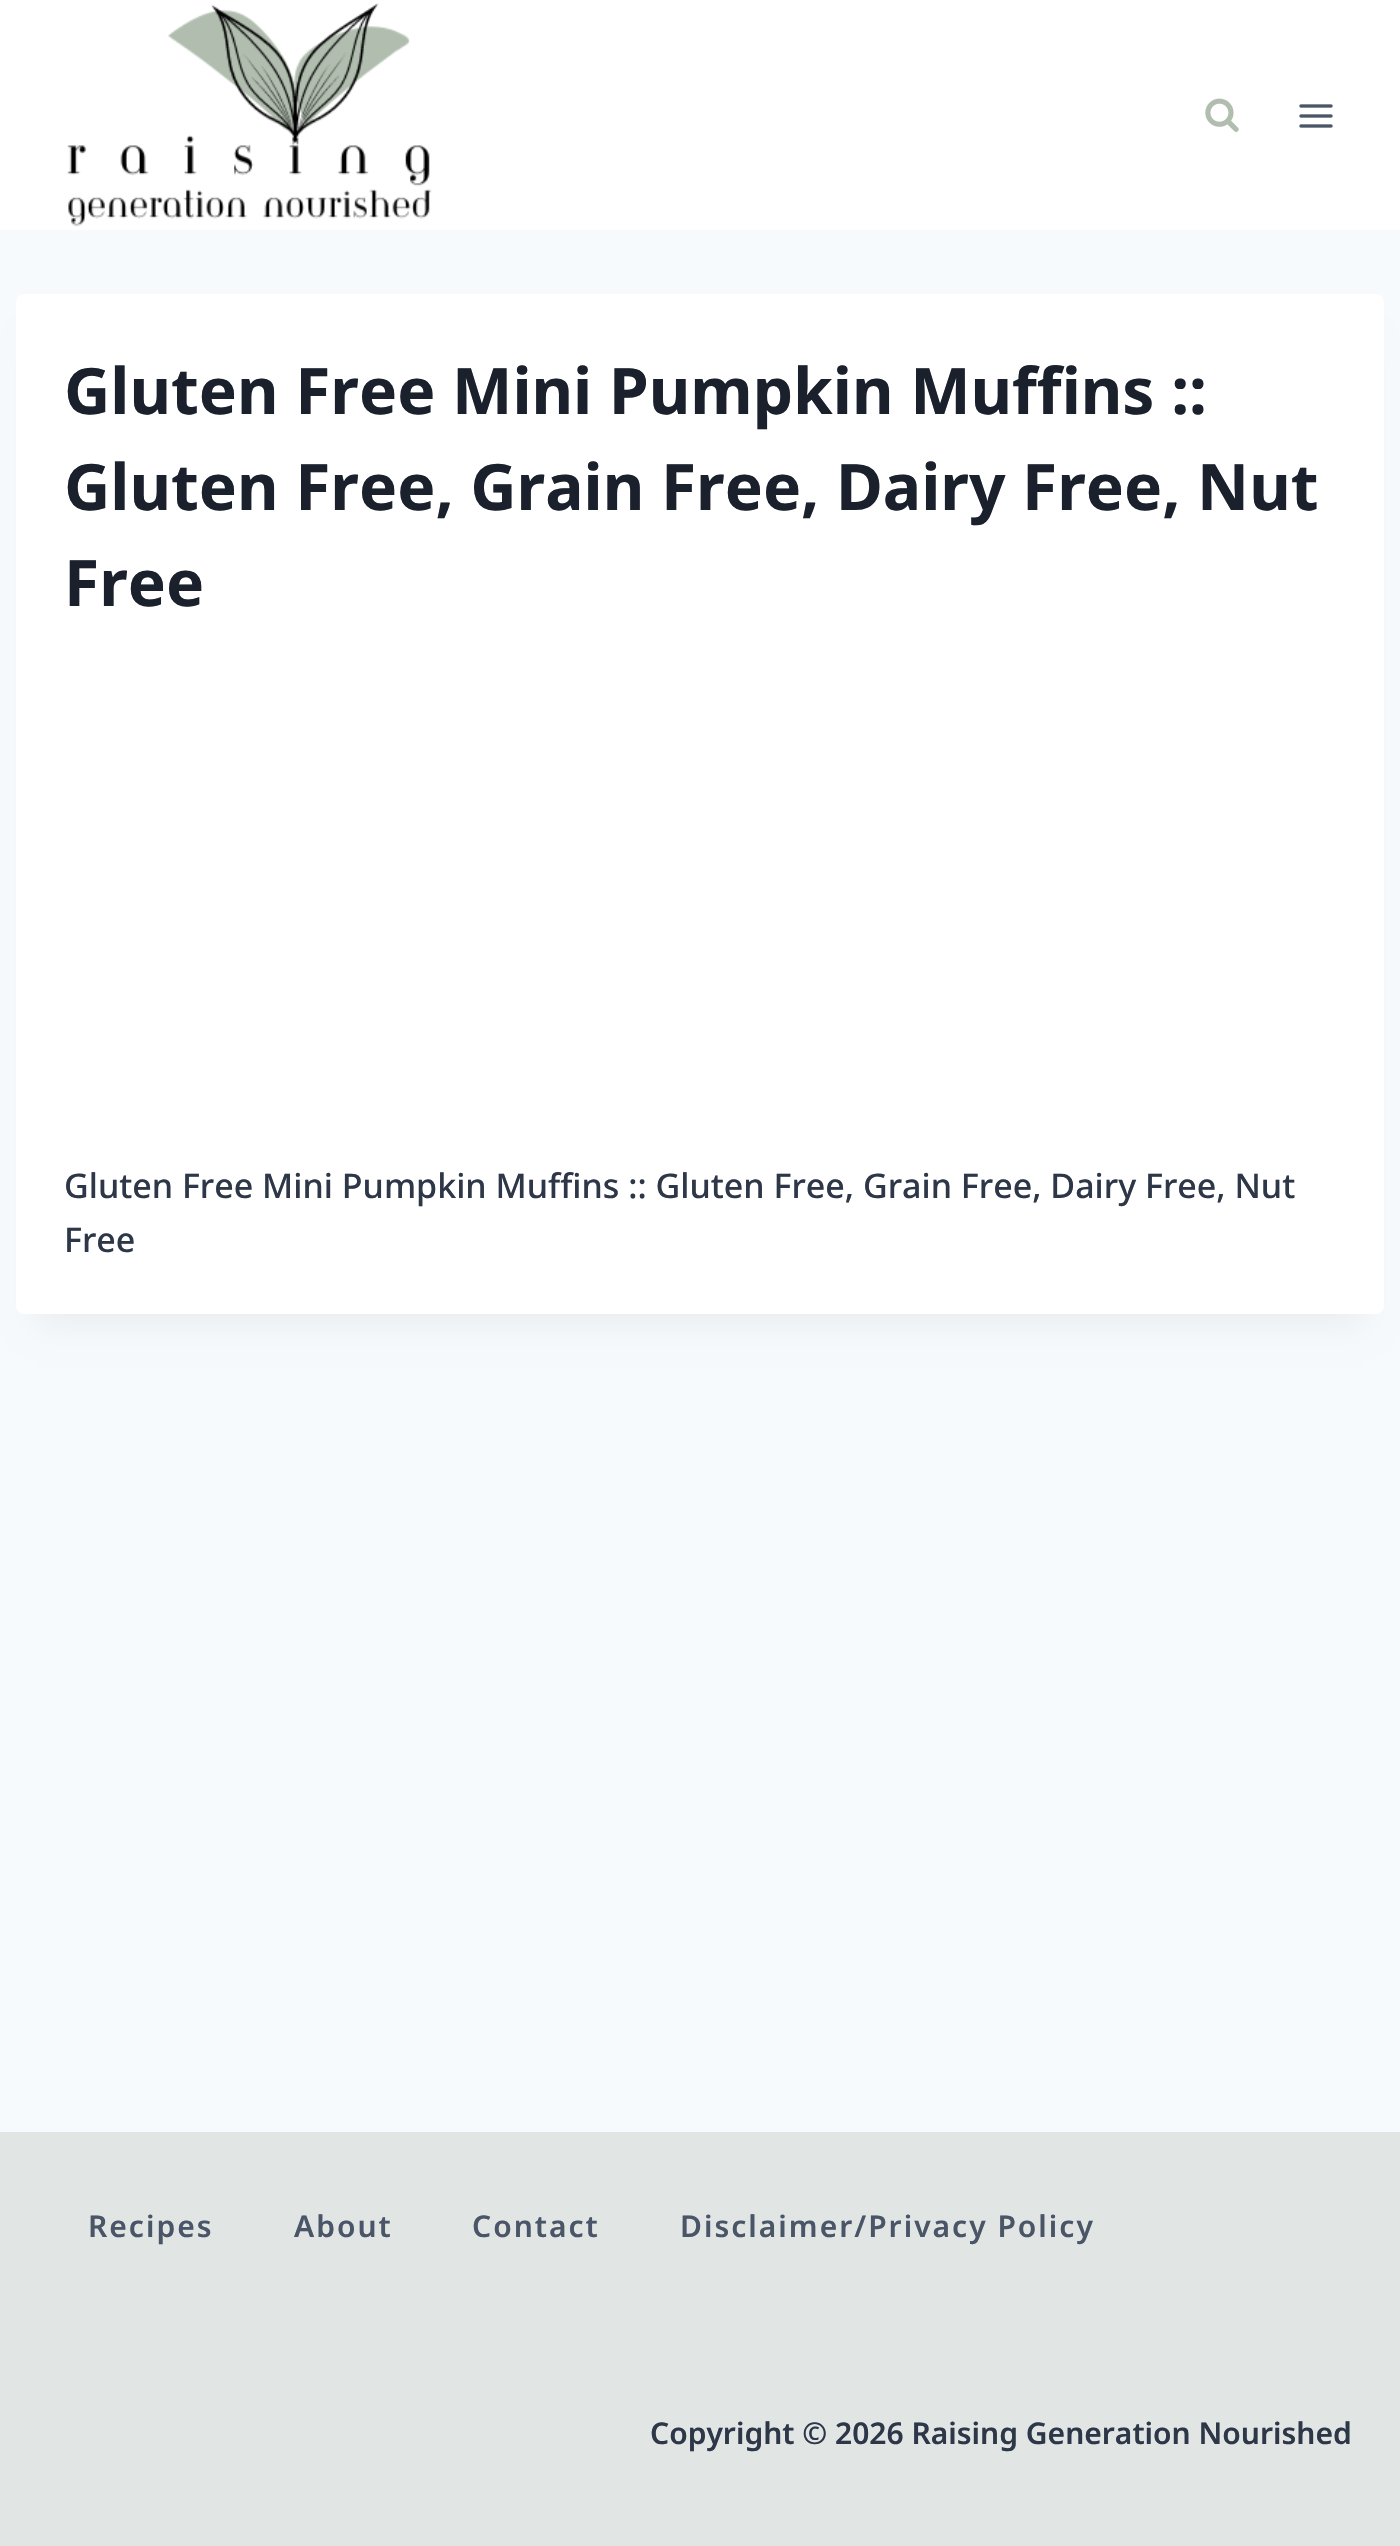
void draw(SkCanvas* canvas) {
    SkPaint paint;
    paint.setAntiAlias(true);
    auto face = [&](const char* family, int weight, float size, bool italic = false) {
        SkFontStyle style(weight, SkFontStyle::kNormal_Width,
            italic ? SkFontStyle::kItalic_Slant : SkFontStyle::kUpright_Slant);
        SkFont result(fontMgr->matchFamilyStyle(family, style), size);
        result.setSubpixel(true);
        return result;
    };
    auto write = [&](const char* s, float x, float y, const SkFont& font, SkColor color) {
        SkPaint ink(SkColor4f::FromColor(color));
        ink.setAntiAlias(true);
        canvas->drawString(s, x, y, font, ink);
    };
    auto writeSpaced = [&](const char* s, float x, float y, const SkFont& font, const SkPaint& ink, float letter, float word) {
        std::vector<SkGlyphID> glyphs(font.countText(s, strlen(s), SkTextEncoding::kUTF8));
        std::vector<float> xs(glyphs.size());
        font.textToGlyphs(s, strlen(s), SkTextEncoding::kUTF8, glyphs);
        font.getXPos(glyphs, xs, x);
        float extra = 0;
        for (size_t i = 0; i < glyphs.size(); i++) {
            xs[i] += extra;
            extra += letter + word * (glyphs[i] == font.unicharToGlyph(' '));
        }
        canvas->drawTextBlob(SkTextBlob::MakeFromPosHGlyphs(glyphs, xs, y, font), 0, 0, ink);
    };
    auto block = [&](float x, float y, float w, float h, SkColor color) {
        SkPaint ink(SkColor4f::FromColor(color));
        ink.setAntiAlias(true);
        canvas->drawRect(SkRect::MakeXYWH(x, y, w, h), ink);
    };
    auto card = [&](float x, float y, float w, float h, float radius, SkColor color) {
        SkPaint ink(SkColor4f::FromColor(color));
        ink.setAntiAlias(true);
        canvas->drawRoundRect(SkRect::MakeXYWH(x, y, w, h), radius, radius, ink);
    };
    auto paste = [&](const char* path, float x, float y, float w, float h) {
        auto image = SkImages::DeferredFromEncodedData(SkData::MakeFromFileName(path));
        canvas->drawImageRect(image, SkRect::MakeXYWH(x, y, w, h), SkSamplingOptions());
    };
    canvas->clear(SkColorSetRGB(247, 250, 252));
    block(0, 0, 1400, 230, SK_ColorWHITE);
    paste("pic1.png", 67, 3, 365, 224);
    paste("pic2.png", 1205, 98, 34, 34);
    paste("pic3.png", 1299, 104, 34, 24);
    paint.setColor(SkColorSetARGB(13, 0, 0, 0));
    paint.setMaskFilter(SkMaskFilter::MakeBlur(kNormal_SkBlurStyle, 15));
    canvas->drawRect(SkRect::MakeXYWH(36, 344, 1328, 980), paint);
    paint.setMaskFilter(nullptr);
    card(16, 294, 1368, 1020, 8, SK_ColorWHITE);
    auto kFont1 = face("Noto Sans", 700, 64);
    write("Gluten Free Mini Pumpkin Muffins ::", 64, 414, kFont1, SkColorSetRGB(26, 32, 44));
    write("Gluten Free, Grain Free, Dairy Free, Nut", 64, 510, kFont1, SkColorSetRGB(26, 32, 44));
    write("Free", 64, 606, kFont1, SkColorSetRGB(26, 32, 44));
    auto kFont2 = face("Noto Sans", 500, 34);
    write("Gluten Free Mini Pumpkin Muffins :: Gluten Free, Grain Free, Dairy Free, Nut", 64, 1198, kFont2, SkColorSetRGB(45, 55, 72));
    write("Free", 64, 1252, kFont2, SkColorSetRGB(45, 55, 72));
    block(0, 2132, 1400, 414, SkColorSetRGB(225, 230, 229));
    auto kFont3 = face("Noto Sans", 600, 30);
    paint.setColor(SkColorSetRGB(74, 85, 104));
    writeSpaced("Recipes", 88, 2237, kFont3, paint, 2, 0);
    writeSpaced("About", 294, 2237, kFont3, paint, 2, 0);
    writeSpaced("Contact", 472, 2237, kFont3, paint, 2, 0);
    writeSpaced("Disclaimer/Privacy Policy", 680, 2237, kFont3, paint, 2, 0);
    write("Copyright © 2026 Raising Generation Nourished", 650, 2444, kFont3, SkColorSetRGB(45, 55, 72));
}
